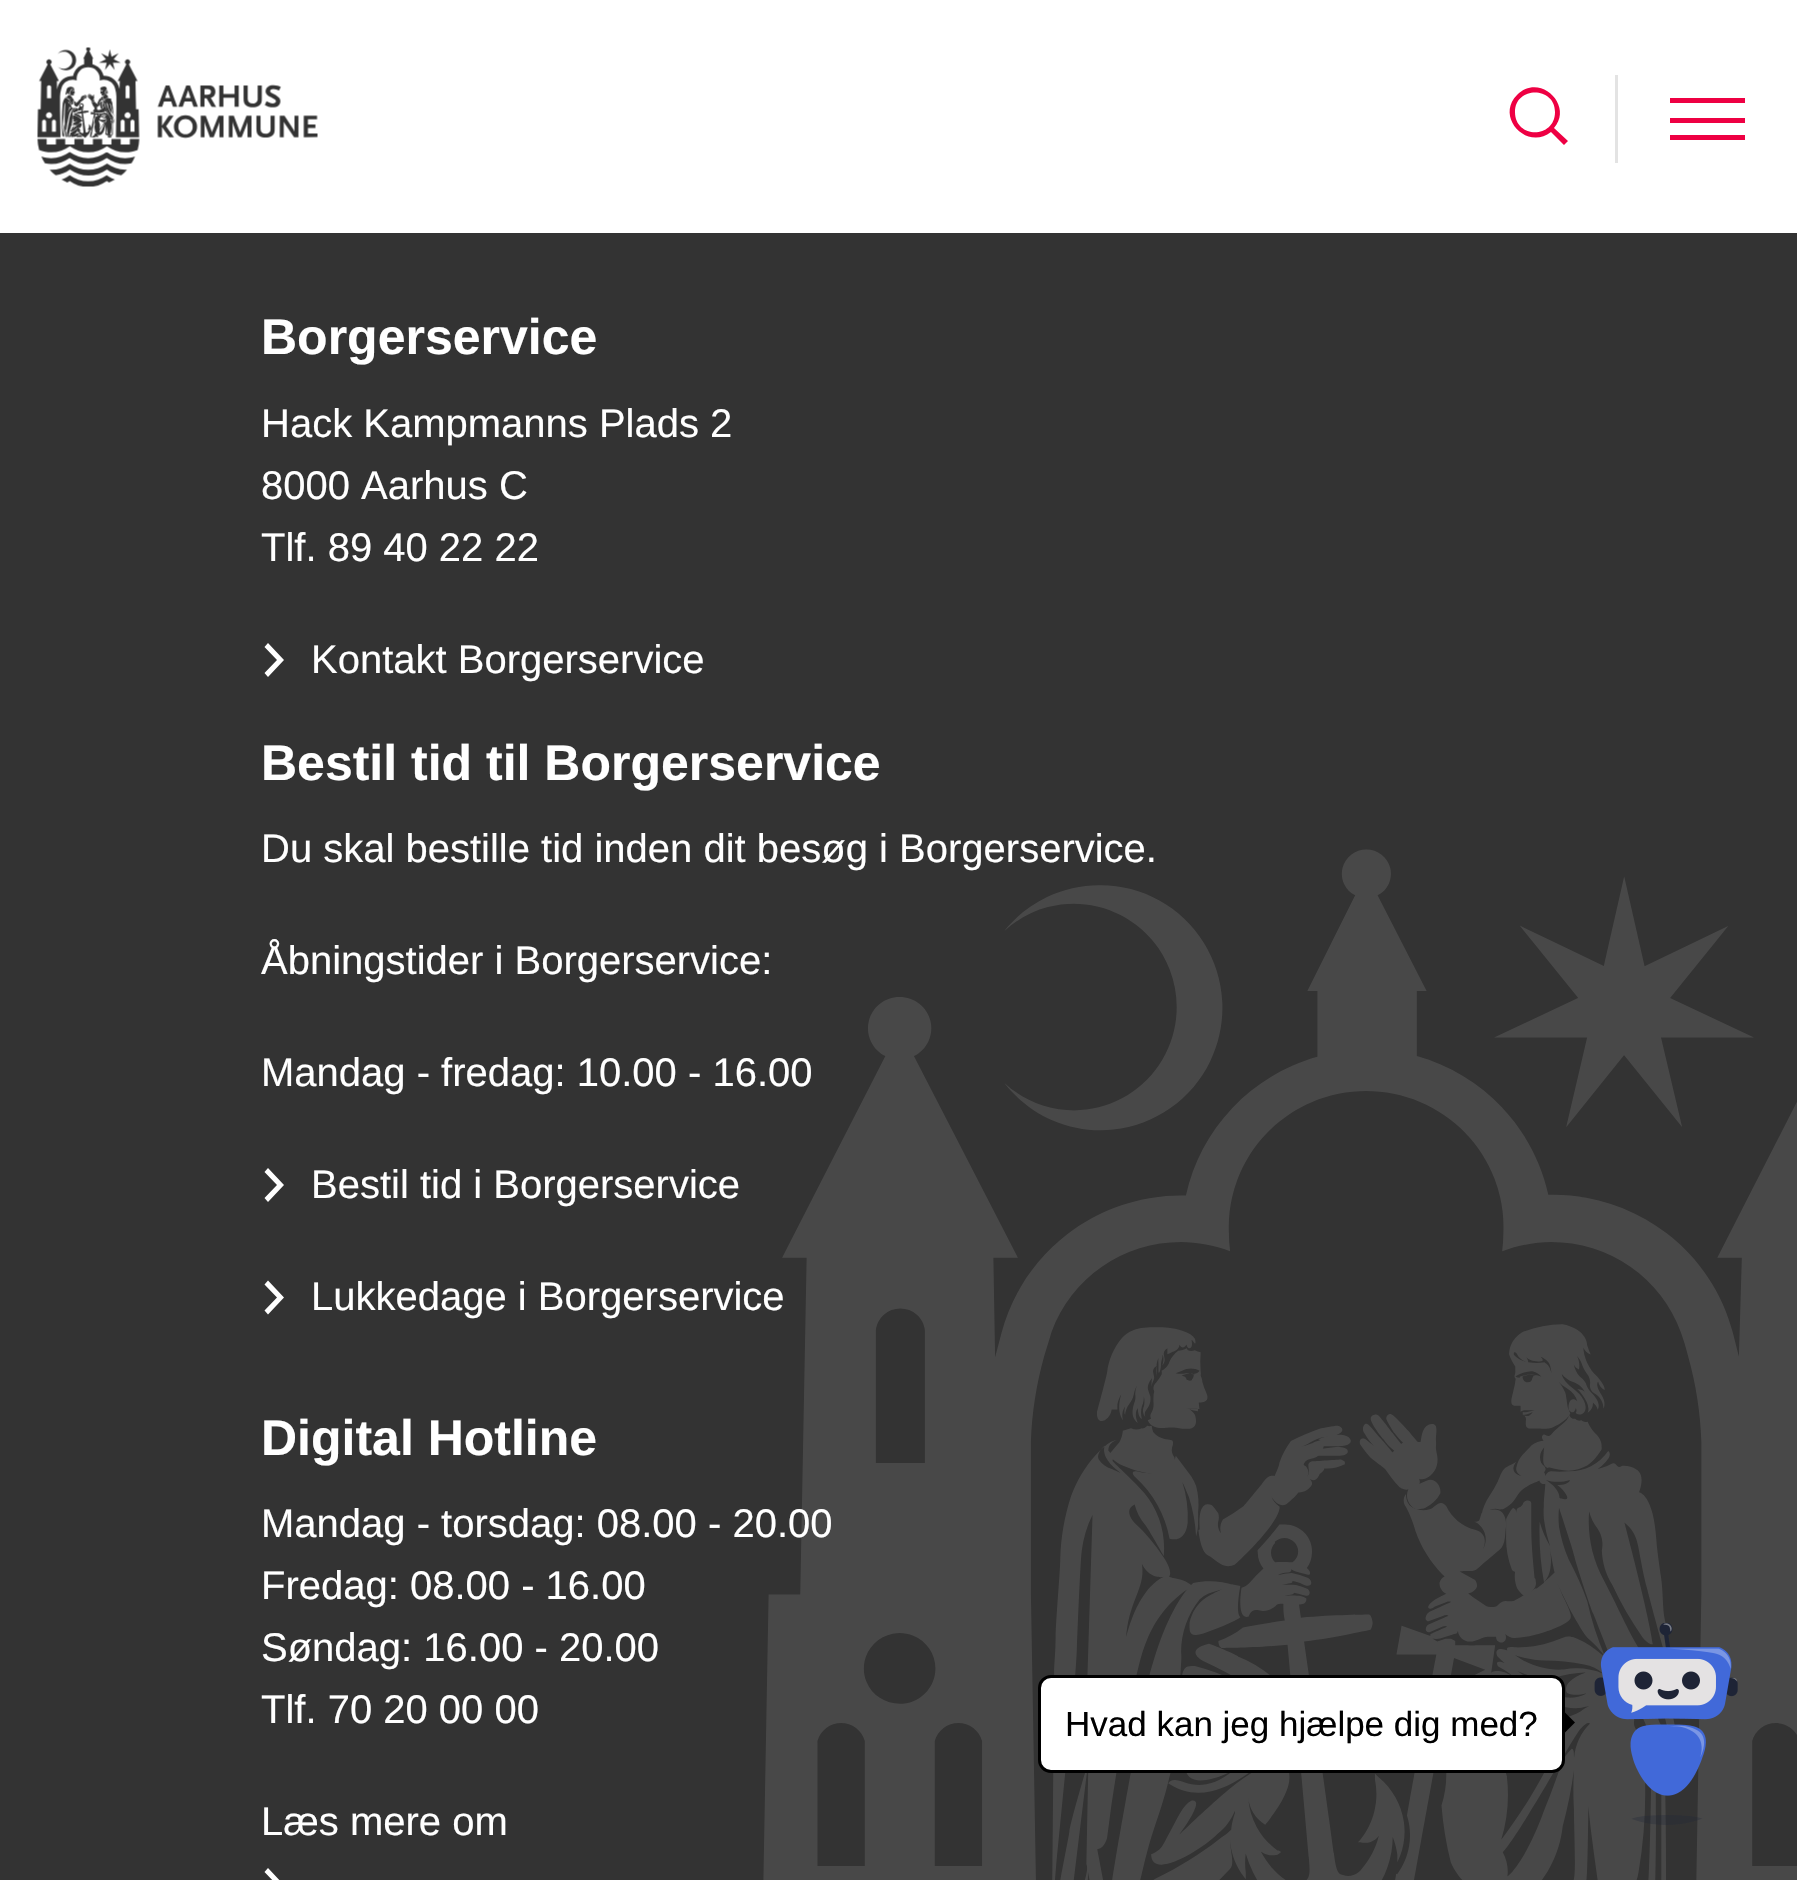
void draw(SkCanvas* canvas) {
    SkPaint paint;
    paint.setAntiAlias(true);
    auto face = [&](const char* family, int weight, float size, bool italic = false) {
        SkFontStyle style(weight, SkFontStyle::kNormal_Width,
            italic ? SkFontStyle::kItalic_Slant : SkFontStyle::kUpright_Slant);
        SkFont result(fontMgr->matchFamilyStyle(family, style), size);
        result.setSubpixel(true);
        return result;
    };
    auto write = [&](const char* s, float x, float y, const SkFont& font, SkColor color) {
        SkPaint ink(SkColor4f::FromColor(color));
        ink.setAntiAlias(true);
        canvas->drawString(s, x, y, font, ink);
    };
    auto block = [&](float x, float y, float w, float h, SkColor color) {
        SkPaint ink(SkColor4f::FromColor(color));
        ink.setAntiAlias(true);
        canvas->drawRect(SkRect::MakeXYWH(x, y, w, h), ink);
    };
    auto paste = [&](const char* path, float x, float y, float w, float h) {
        auto image = SkImages::DeferredFromEncodedData(SkData::MakeFromFileName(path));
        canvas->drawImageRect(image, SkRect::MakeXYWH(x, y, w, h), SkSamplingOptions());
    };
    canvas->clear(SkColorSetRGB(51, 51, 51));
    block(0, 0, 1797, 233, SK_ColorWHITE);
    paste("pic1.png", 37, 47, 281, 140);
    paint.setColor(SkColorSetRGB(238, 0, 67));
    canvas->drawPath(SkPathBuilder(SkPathFillType::kEvenOdd).moveTo(1551, 132).cubicTo(1527, 151, 1495, 117, 1517, 95).cubicTo(1540, 72, 1574, 106, 1554, 128).lineTo(1568, 141).lineTo(1564, 145).close().moveTo(1555, 112).cubicTo(1555, 139, 1515, 139, 1515, 112).cubicTo(1515, 86, 1555, 86, 1555, 112).close().detach(), paint);
    block(1615, 75, 3, 88, SkColorSetRGB(227, 227, 227));
    block(1670, 98, 75, 5, SkColorSetRGB(238, 0, 67));
    block(1670, 118, 75, 5, SkColorSetRGB(238, 0, 67));
    block(1670, 135, 75, 5, SkColorSetRGB(238, 0, 67));
    auto kFont1 = face("Liberation Sans", 700, 50);
    write("Borgerservice", 261, 354, kFont1, SK_ColorWHITE);
    auto kFont2 = face("Liberation Sans", 400, 40);
    write("Hack Kampmanns Plads 2", 261, 437, kFont2, SK_ColorWHITE);
    write("8000 Aarhus C", 261, 499, kFont2, SK_ColorWHITE);
    write("Tlf. 89 40 22 22", 261, 561, kFont2, SK_ColorWHITE);
    paint.setColor(SK_ColorWHITE);
    canvas->drawPath(SkPathBuilder().moveTo(284, 660).lineTo(268, 677).lineTo(264.5f, 673).lineTo(277, 660).lineTo(264.5f, 647).lineTo(268, 643).close().detach(), paint);
    write("Kontakt Borgerservice", 311, 673, kFont2, SK_ColorWHITE);
    write("Bestil tid til Borgerservice", 261, 780, kFont1, SK_ColorWHITE);
    paste("pic2.png", 763, 849, 1034, 1031);
    write("Du skal bestille tid inden dit besøg i Borgerservice.", 261, 862, kFont2, SK_ColorWHITE);
    write("Åbningstider i Borgerservice:", 261, 974, kFont2, SK_ColorWHITE);
    write("Mandag - fredag: 10.00 - 16.00", 261, 1086, kFont2, SK_ColorWHITE);
    canvas->drawPath(SkPathBuilder().moveTo(284, 1185).lineTo(268, 1202).lineTo(264.5f, 1198).lineTo(277, 1185).lineTo(264.5f, 1172).lineTo(268, 1168).close().detach(), paint);
    write("Bestil tid i Borgerservice", 311, 1198, kFont2, SK_ColorWHITE);
    canvas->drawPath(SkPathBuilder().moveTo(284, 1297.5f).lineTo(268, 1314.5f).lineTo(264.5f, 1310.5f).lineTo(277, 1297.5f).lineTo(264.5f, 1284.5f).lineTo(268, 1280.5f).close().detach(), paint);
    write("Lukkedage i Borgerservice", 311, 1310, kFont2, SK_ColorWHITE);
    write("Digital Hotline", 261, 1455, kFont1, SK_ColorWHITE);
    write("Mandag - torsdag: 08.00 - 20.00", 261, 1537, kFont2, SK_ColorWHITE);
    write("Fredag: 08.00 - 16.00", 261, 1599, kFont2, SK_ColorWHITE);
    write("Søndag: 16.00 - 20.00", 261, 1661, kFont2, SK_ColorWHITE);
    write("Tlf. 70 20 00 00", 261, 1723, kFont2, SK_ColorWHITE);
    write("Læs mere om", 261, 1835, kFont2, SK_ColorWHITE);
    canvas->drawPath(SkPathBuilder().moveTo(284, 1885).lineTo(268, 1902).lineTo(264.5f, 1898).lineTo(277, 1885).lineTo(264.5f, 1872).lineTo(268, 1868).close().detach(), paint);
    canvas->drawRoundRect(SkRect::MakeXYWH(1039.5f, 1676.5f, 524, 95), 11.5f, 11.5f, paint);
    paint.setStyle(SkPaint::kStroke_Style);
    paint.setStrokeWidth(3);
    paint.setColor(SK_ColorBLACK);
    canvas->drawRoundRect(SkRect::MakeXYWH(1039.5f, 1676.5f, 524, 95), 11.5f, 11.5f, paint);
    auto kFont3 = face("Liberation Sans", 400, 35);
    write("Hvad kan jeg hjælpe dig med?", 1065, 1736, kFont3, SK_ColorBLACK);
    paint.setStyle(SkPaint::kFill_Style);
    canvas->drawPath(SkPathBuilder().moveTo(1562.5f, 1735).lineTo(1562.5f, 1710).lineTo(1575, 1722.5f).close().detach(), paint);
    paste("pic3.png", 1594, 1623, 144, 202);
}
